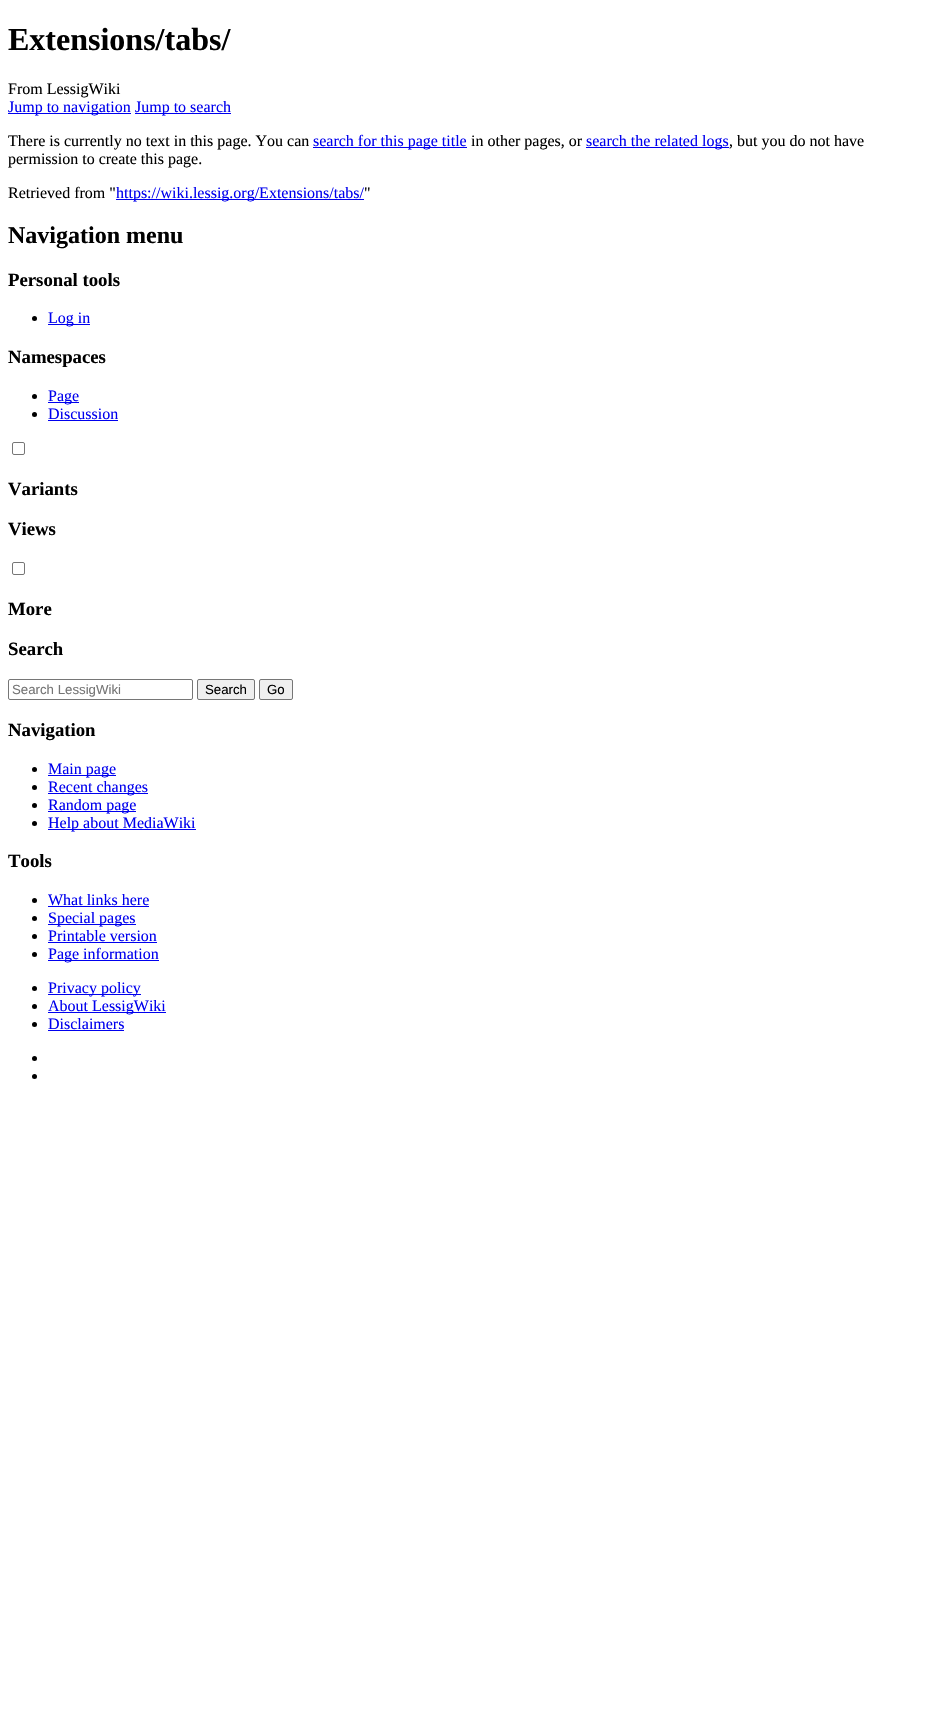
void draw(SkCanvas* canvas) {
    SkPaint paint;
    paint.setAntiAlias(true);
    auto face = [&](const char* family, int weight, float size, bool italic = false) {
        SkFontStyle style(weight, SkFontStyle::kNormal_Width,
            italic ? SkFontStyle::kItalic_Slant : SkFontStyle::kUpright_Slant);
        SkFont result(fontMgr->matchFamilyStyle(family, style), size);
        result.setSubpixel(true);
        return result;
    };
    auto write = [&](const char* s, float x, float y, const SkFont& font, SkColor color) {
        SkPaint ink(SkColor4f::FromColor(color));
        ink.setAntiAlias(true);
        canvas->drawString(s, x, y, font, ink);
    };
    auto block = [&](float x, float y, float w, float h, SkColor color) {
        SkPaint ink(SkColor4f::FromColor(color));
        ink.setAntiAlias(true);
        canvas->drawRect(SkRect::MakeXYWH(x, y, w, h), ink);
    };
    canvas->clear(SK_ColorWHITE);
    auto kFont1 = face("Liberation Serif", 700, 32);
    write("Extensions/tabs/", 8, 50, kFont1, SK_ColorBLACK);
    auto kFont2 = face("Liberation Serif", 400, 16);
    write("From LessigWiki", 8, 94, kFont2, SK_ColorBLACK);
    block(8, 113, 123, 1, SkColorSetRGB(0, 0, 238));
    write("Jump to navigation", 8, 112, kFont2, SkColorSetRGB(0, 0, 238));
    block(135, 113, 96, 1, SkColorSetRGB(0, 0, 238));
    write("Jump to search", 135, 112, kFont2, SkColorSetRGB(0, 0, 238));
    write("There is currently no text in this page. You can", 8, 146, kFont2, SK_ColorBLACK);
    block(313, 147, 154, 1, SkColorSetRGB(0, 0, 238));
    write("search for this page title", 313, 146, kFont2, SkColorSetRGB(0, 0, 238));
    write("in other pages, or", 471, 146, kFont2, SK_ColorBLACK);
    block(586, 147, 143, 1, SkColorSetRGB(0, 0, 238));
    write("search the related logs", 586, 146, kFont2, SkColorSetRGB(0, 0, 238));
    write(", but you do not have", 729, 146, kFont2, SK_ColorBLACK);
    write("permission to create this page.", 8, 164, kFont2, SK_ColorBLACK);
    write("Retrieved from \"", 8, 198, kFont2, SK_ColorBLACK);
    block(116, 199, 248, 1, SkColorSetRGB(0, 0, 238));
    write("https://wiki.lessig.org/Extensions/tabs/", 116, 198, kFont2, SkColorSetRGB(0, 0, 238));
    write("\"", 364, 198, kFont2, SK_ColorBLACK);
    auto kFont3 = face("Liberation Serif", 700, 24);
    write("Navigation menu", 8, 243, kFont3, SK_ColorBLACK);
    auto kFont4 = face("Liberation Serif", 700, 18.75f);
    write("Personal tools", 8, 286, kFont4, SK_ColorBLACK);
    paint.setColor(SK_ColorBLACK);
    canvas->drawCircle(34.5f, 318.5f, 2.5f, paint);
    block(48, 324, 42, 1, SkColorSetRGB(0, 0, 238));
    write("Log in", 48, 323, kFont2, SkColorSetRGB(0, 0, 238));
    write("Namespaces", 8, 363, kFont4, SK_ColorBLACK);
    canvas->drawCircle(34.5f, 396.5f, 2.5f, paint);
    block(48, 402, 31, 1, SkColorSetRGB(0, 0, 238));
    write("Page", 48, 401, kFont2, SkColorSetRGB(0, 0, 238));
    canvas->drawCircle(34.5f, 414.5f, 2.5f, paint);
    write("Discussion", 48, 419, kFont2, SkColorSetRGB(0, 0, 238));
    block(48, 420, 70, 1, SkColorSetRGB(0, 0, 238));
    paint.setStyle(SkPaint::kStroke_Style);
    paint.setStrokeWidth(1);
    paint.setColor(SkColorSetRGB(118, 118, 118));
    canvas->drawRoundRect(SkRect::MakeXYWH(12.5f, 442.5f, 12, 12), 1.5f, 1.5f, paint);
    write("Variants", 8, 495, kFont4, SK_ColorBLACK);
    write("Views", 8, 535, kFont4, SK_ColorBLACK);
    canvas->drawRoundRect(SkRect::MakeXYWH(12.5f, 562.5f, 12, 12), 1.5f, 1.5f, paint);
    write("More", 8, 615, kFont4, SK_ColorBLACK);
    write("Search", 8, 655, kFont4, SK_ColorBLACK);
    canvas->drawRoundRect(SkRect::MakeXYWH(8.5f, 679.5f, 184, 20), 1.5f, 1.5f, paint);
    auto kFont5 = face("Liberation Sans", 400, 13.25f);
    write("Search LessigWiki", 12, 694, kFont5, SkColorSetRGB(117, 117, 117));
    paint.setStyle(SkPaint::kFill_Style);
    paint.setColor(SkColorSetRGB(239, 239, 239));
    canvas->drawRoundRect(SkRect::MakeXYWH(197.5f, 679.5f, 57, 20), 1.5f, 1.5f, paint);
    paint.setStyle(SkPaint::kStroke_Style);
    paint.setColor(SkColorSetRGB(118, 118, 118));
    canvas->drawRoundRect(SkRect::MakeXYWH(197.5f, 679.5f, 57, 20), 1.5f, 1.5f, paint);
    write("Search", 205, 694, kFont5, SK_ColorBLACK);
    paint.setStyle(SkPaint::kFill_Style);
    paint.setColor(SkColorSetRGB(239, 239, 239));
    canvas->drawRoundRect(SkRect::MakeXYWH(259.5f, 679.5f, 33, 20), 1.5f, 1.5f, paint);
    paint.setStyle(SkPaint::kStroke_Style);
    paint.setColor(SkColorSetRGB(118, 118, 118));
    canvas->drawRoundRect(SkRect::MakeXYWH(259.5f, 679.5f, 33, 20), 1.5f, 1.5f, paint);
    write("Go", 267, 694, kFont5, SK_ColorBLACK);
    write("Navigation", 8, 736, kFont4, SK_ColorBLACK);
    paint.setStyle(SkPaint::kFill_Style);
    paint.setColor(SK_ColorBLACK);
    canvas->drawCircle(34.5f, 769.5f, 2.5f, paint);
    block(48, 775, 68, 1, SkColorSetRGB(0, 0, 238));
    write("Main page", 48, 774, kFont2, SkColorSetRGB(0, 0, 238));
    canvas->drawCircle(34.5f, 787.5f, 2.5f, paint);
    block(48, 793, 100, 1, SkColorSetRGB(0, 0, 238));
    write("Recent changes", 48, 792, kFont2, SkColorSetRGB(0, 0, 238));
    canvas->drawCircle(34.5f, 805.5f, 2.5f, paint);
    block(48, 811, 88, 1, SkColorSetRGB(0, 0, 238));
    write("Random page", 48, 810, kFont2, SkColorSetRGB(0, 0, 238));
    canvas->drawCircle(34.5f, 823.5f, 2.5f, paint);
    block(48, 829, 148, 1, SkColorSetRGB(0, 0, 238));
    write("Help about MediaWiki", 48, 828, kFont2, SkColorSetRGB(0, 0, 238));
    write("Tools", 8, 867, kFont4, SK_ColorBLACK);
    canvas->drawCircle(34.5f, 900.5f, 2.5f, paint);
    write("What links here", 48, 905, kFont2, SkColorSetRGB(0, 0, 238));
    block(48, 906, 101, 1, SkColorSetRGB(0, 0, 238));
    canvas->drawCircle(34.5f, 918.5f, 2.5f, paint);
    block(48, 924, 88, 1, SkColorSetRGB(0, 0, 238));
    write("Special pages", 48, 923, kFont2, SkColorSetRGB(0, 0, 238));
    canvas->drawCircle(34.5f, 936.5f, 2.5f, paint);
    write("Printable version", 48, 941, kFont2, SkColorSetRGB(0, 0, 238));
    block(48, 942, 109, 1, SkColorSetRGB(0, 0, 238));
    canvas->drawCircle(34.5f, 954.5f, 2.5f, paint);
    block(48, 960, 111, 1, SkColorSetRGB(0, 0, 238));
    write("Page information", 48, 959, kFont2, SkColorSetRGB(0, 0, 238));
    canvas->drawCircle(34.5f, 988.5f, 2.5f, paint);
    block(48, 994, 93, 1, SkColorSetRGB(0, 0, 238));
    write("Privacy policy", 48, 993, kFont2, SkColorSetRGB(0, 0, 238));
    canvas->drawCircle(34.5f, 1006.5f, 2.5f, paint);
    block(48, 1012, 118, 1, SkColorSetRGB(0, 0, 238));
    write("About LessigWiki", 48, 1011, kFont2, SkColorSetRGB(0, 0, 238));
    canvas->drawCircle(34.5f, 1024.5f, 2.5f, paint);
    write("Disclaimers", 48, 1029, kFont2, SkColorSetRGB(0, 0, 238));
    block(48, 1030, 76, 1, SkColorSetRGB(0, 0, 238));
    canvas->drawCircle(34.5f, 1058.5f, 2.5f, paint);
    canvas->drawCircle(34.5f, 1076.5f, 2.5f, paint);
}
